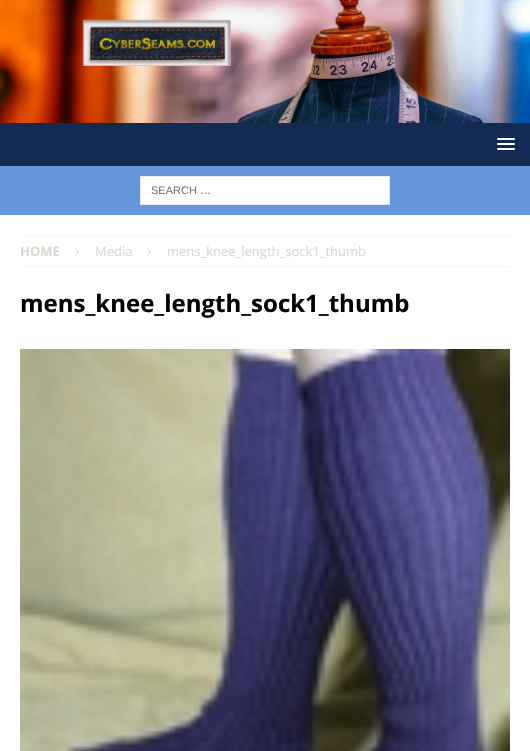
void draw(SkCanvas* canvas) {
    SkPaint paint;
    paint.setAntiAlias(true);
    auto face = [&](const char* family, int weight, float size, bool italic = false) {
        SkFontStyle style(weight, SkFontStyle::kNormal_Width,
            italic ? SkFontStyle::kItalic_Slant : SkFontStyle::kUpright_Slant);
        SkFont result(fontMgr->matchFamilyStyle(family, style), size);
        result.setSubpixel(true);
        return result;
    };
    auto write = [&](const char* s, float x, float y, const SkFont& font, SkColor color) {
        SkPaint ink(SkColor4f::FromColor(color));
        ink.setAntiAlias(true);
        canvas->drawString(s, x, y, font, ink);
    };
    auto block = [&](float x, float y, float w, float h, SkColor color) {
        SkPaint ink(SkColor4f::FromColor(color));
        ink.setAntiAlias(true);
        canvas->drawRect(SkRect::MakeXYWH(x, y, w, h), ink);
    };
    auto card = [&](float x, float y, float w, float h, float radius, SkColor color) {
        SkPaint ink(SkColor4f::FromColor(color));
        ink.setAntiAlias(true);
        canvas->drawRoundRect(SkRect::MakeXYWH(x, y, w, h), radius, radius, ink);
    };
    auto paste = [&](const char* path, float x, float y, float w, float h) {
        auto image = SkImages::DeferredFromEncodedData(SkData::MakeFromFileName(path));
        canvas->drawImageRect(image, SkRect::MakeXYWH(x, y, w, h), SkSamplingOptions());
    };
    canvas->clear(SkColorSetRGB(19, 42, 82));
    paste("pic1.png", 0, 0, 530, 123);
    card(497, 138, 18, 2, 1, SK_ColorWHITE);
    card(497, 143, 18, 2, 1, SK_ColorWHITE);
    card(497, 148, 18, 2, 1, SK_ColorWHITE);
    block(0, 166, 530, 49, SkColorSetRGB(101, 150, 218));
    paint.setColor(SK_ColorWHITE);
    canvas->drawRect(SkRect::MakeXYWH(140.5f, 176.5f, 249, 28), paint);
    paint.setStyle(SkPaint::kStroke_Style);
    paint.setStrokeWidth(1);
    paint.setColor(SkColorSetRGB(235, 235, 235));
    canvas->drawRect(SkRect::MakeXYWH(140.5f, 176.5f, 249, 28), paint);
    auto kFont1 = face("Liberation Sans", 400, 11);
    write("SEARCH …", 151, 194, kFont1, SkColorSetRGB(117, 117, 117));
    block(0, 215, 530, 536, SK_ColorWHITE);
    paint.setPathEffect(SkDashPathEffect::Make({{1, 1}}, 0));
    canvas->drawPath(SkPathBuilder().moveTo(20, 235.5f).lineTo(510, 235.5f).detach(), paint);
    paint.setPathEffect(nullptr);
    paint.setPathEffect(SkDashPathEffect::Make({{1, 1}}, 0));
    canvas->drawPath(SkPathBuilder().moveTo(20, 266.5f).lineTo(510, 266.5f).detach(), paint);
    paint.setPathEffect(nullptr);
    auto kFont2 = face("Open Sans", 700, 13);
    write("HOME", 20, 256, kFont2, SkColorSetRGB(221, 216, 208));
    paste("pic2.png", 75, 248, 5, 8);
    auto kFont3 = face("Open Sans", 400, 13);
    write("Media", 95, 256, kFont3, SkColorSetRGB(221, 216, 208));
    paste("pic2.png", 147, 248, 5, 8);
    write("mens_knee_length_sock1_thumb", 167, 256, kFont3, SkColorSetRGB(221, 216, 208));
    auto kFont4 = face("Open Sans", 700, 24);
    write("mens_knee_length_sock1_thumb", 20, 312, kFont4, SK_ColorBLACK);
    paste("pic3.png", 20, 349, 490, 402);
}
